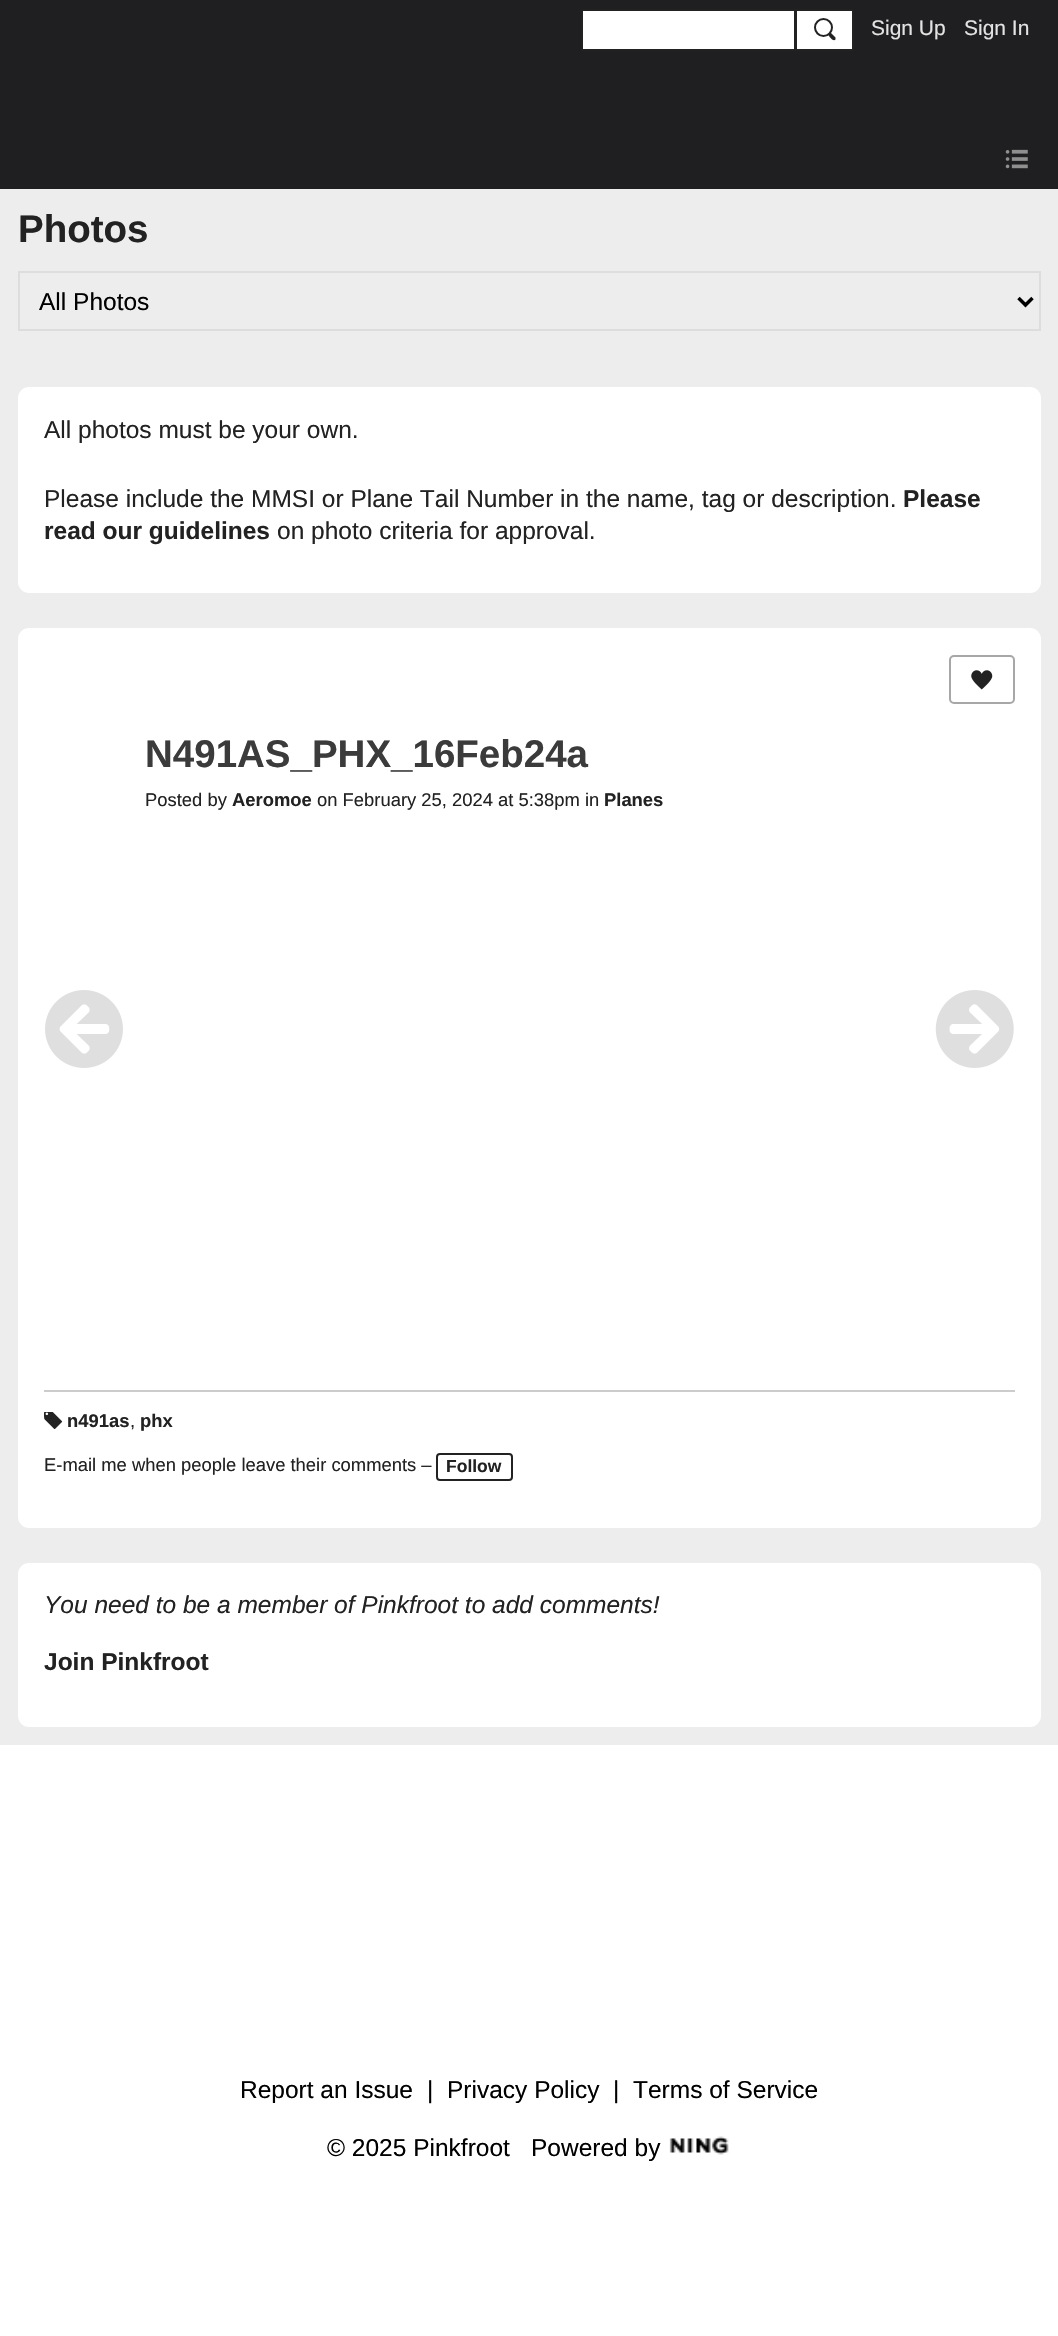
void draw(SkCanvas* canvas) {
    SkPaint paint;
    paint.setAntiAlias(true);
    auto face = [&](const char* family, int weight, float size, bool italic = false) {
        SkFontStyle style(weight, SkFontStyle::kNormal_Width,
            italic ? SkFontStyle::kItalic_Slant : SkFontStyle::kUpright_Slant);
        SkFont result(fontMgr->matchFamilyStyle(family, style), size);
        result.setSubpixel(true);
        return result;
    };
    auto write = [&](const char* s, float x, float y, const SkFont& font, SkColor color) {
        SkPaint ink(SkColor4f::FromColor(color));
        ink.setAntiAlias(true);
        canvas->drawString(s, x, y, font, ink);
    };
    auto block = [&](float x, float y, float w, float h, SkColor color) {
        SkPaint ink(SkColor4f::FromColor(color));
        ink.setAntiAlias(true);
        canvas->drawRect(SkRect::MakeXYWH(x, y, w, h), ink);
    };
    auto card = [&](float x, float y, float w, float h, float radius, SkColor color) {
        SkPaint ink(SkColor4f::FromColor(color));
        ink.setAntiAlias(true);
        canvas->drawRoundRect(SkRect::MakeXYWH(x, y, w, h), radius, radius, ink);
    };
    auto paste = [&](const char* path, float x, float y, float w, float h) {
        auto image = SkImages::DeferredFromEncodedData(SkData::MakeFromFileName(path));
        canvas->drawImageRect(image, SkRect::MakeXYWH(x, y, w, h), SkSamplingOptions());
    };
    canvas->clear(SK_ColorWHITE);
    block(0, 0, 1058, 189, SkColorSetRGB(31, 30, 33));
    paint.setColor(SK_ColorWHITE);
    canvas->drawRect(SkRect::MakeXYWH(582, 10, 213, 40), paint);
    paint.setStyle(SkPaint::kStroke_Style);
    paint.setStrokeWidth(2);
    paint.setColor(SkColorSetRGB(34, 34, 34));
    canvas->drawRect(SkRect::MakeXYWH(582, 10, 213, 40), paint);
    paint.setStyle(SkPaint::kFill_Style);
    paint.setColor(SK_ColorWHITE);
    canvas->drawRect(SkRect::MakeXYWH(796, 10, 57, 40), paint);
    paint.setStyle(SkPaint::kStroke_Style);
    paint.setColor(SkColorSetRGB(34, 34, 34));
    canvas->drawRect(SkRect::MakeXYWH(796, 10, 57, 40), paint);
    canvas->drawCircle(823.5f, 27.5f, 8.5f, paint);
    paint.setStyle(SkPaint::kFill_Style);
    canvas->drawPath(SkPathBuilder().moveTo(831.5f, 33.5f).lineTo(835.5f, 37.5f).cubicTo(835.5f, 38, 835.5f, 39, 835.5f, 39.5f).cubicTo(833.5f, 42, 830, 37.5f, 829, 36).cubicTo(827.5f, 34.5f, 830, 32, 831.5f, 33.5f).close().detach(), paint);
    auto kFont1 = face("Liberation Sans", 400, 21);
    write("Sign Up", 871, 35, kFont1, SkColorSetRGB(227, 227, 227));
    write("Sign In", 964, 35, kFont1, SkColorSetRGB(227, 227, 227));
    paste("pic1.png", 1005, 149, 23, 20);
    block(0, 189, 1058, 1556, SkColorSetRGB(237, 237, 237));
    auto kFont2 = face("Liberation Sans", 700, 38.5f);
    write("Photos", 18, 242, kFont2, SkColorSetRGB(34, 34, 34));
    paint.setStyle(SkPaint::kStroke_Style);
    paint.setColor(SkColorSetRGB(221, 221, 221));
    canvas->drawRect(SkRect::MakeXYWH(19, 272, 1021, 58), paint);
    paint.setStrokeWidth(3.5f);
    paint.setColor(SK_ColorBLACK);
    canvas->drawPath(SkPathBuilder().moveTo(1018.5f, 298).lineTo(1025.5f, 305).lineTo(1032.5f, 298).detach(), paint);
    auto kFont3 = face("Liberation Sans", 400, 24.5f);
    write("All Photos", 39, 310, kFont3, SK_ColorBLACK);
    card(18, 387, 1023, 206, 11, SK_ColorWHITE);
    write("All photos must be your own.", 44, 438, kFont3, SkColorSetRGB(34, 34, 34));
    write("Please include the MMSI or Plane Tail Number in the name, tag or description.", 44, 507, kFont3, SkColorSetRGB(34, 34, 34));
    auto kFont4 = face("Liberation Sans", 700, 24.5f);
    write("Please", 903, 507, kFont4, SkColorSetRGB(34, 34, 34));
    write("read our guidelines", 44, 539, kFont4, SkColorSetRGB(34, 34, 34));
    write("on photo criteria for approval.", 277, 539, kFont3, SkColorSetRGB(34, 34, 34));
    card(18, 628, 1023, 900, 11, SK_ColorWHITE);
    paint.setStrokeWidth(2);
    paint.setColor(SkColorSetRGB(167, 167, 167));
    canvas->drawRoundRect(SkRect::MakeXYWH(950, 656, 64, 47), 4, 4, paint);
    paste("pic2.png", 971, 670, 22, 20);
    write("N491AS_PHX_16Feb24a", 145, 767, kFont2, SkColorSetRGB(59, 59, 59));
    auto kFont5 = face("Liberation Sans", 400, 18.4f);
    write("Posted by", 145, 806, kFont5, SkColorSetRGB(34, 34, 34));
    auto kFont6 = face("Liberation Sans", 700, 18.4f);
    write("Aeromoe", 232, 806, kFont6, SkColorSetRGB(34, 34, 34));
    write("on February 25, 2024 at 5:38pm in", 317, 806, kFont5, SkColorSetRGB(34, 34, 34));
    write("Planes", 604, 806, kFont6, SkColorSetRGB(34, 34, 34));
    paste("pic3.png", 45, 990, 78, 78);
    paste("pic4.png", 935, 990, 79, 78);
    block(44, 1390, 971, 2, SkColorSetRGB(204, 204, 204));
    paste("pic5.png", 44, 1412, 19, 17);
    write("n491as", 67, 1427, kFont6, SkColorSetRGB(34, 34, 34));
    write(",", 130, 1427, kFont5, SkColorSetRGB(34, 34, 34));
    write("phx", 140, 1427, kFont6, SkColorSetRGB(34, 34, 34));
    write("E-mail me when people leave their comments –", 44, 1471, kFont5, SkColorSetRGB(34, 34, 34));
    paint.setColor(SkColorSetRGB(34, 34, 34));
    canvas->drawRoundRect(SkRect::MakeXYWH(437, 1454, 75, 26), 3, 3, paint);
    auto kFont7 = face("Liberation Sans", 700, 17.5f);
    write("Follow", 446, 1472, kFont7, SkColorSetRGB(34, 34, 34));
    card(18, 1563, 1023, 164, 11, SK_ColorWHITE);
    auto kFont8 = face("Liberation Sans", 400, 24.5f, true);
    write("You need to be a member of Pinkfroot to add comments!", 44, 1613, kFont8, SkColorSetRGB(34, 34, 34));
    write("Join Pinkfroot", 44, 1670, kFont4, SkColorSetRGB(34, 34, 34));
    write("Report an Issue", 240, 2098, kFont3, SK_ColorBLACK);
    write("|", 427, 2098, kFont3, SK_ColorBLACK);
    write("Privacy Policy", 447, 2098, kFont3, SK_ColorBLACK);
    write("|", 613, 2098, kFont3, SK_ColorBLACK);
    write("Terms of Service", 633, 2098, kFont3, SK_ColorBLACK);
    write("© 2025 Pinkfroot", 327, 2156, kFont3, SK_ColorBLACK);
    write("Powered by", 531, 2156, kFont3, SK_ColorBLACK);
    paste("pic6.png", 669, 2136, 60, 19);
}
